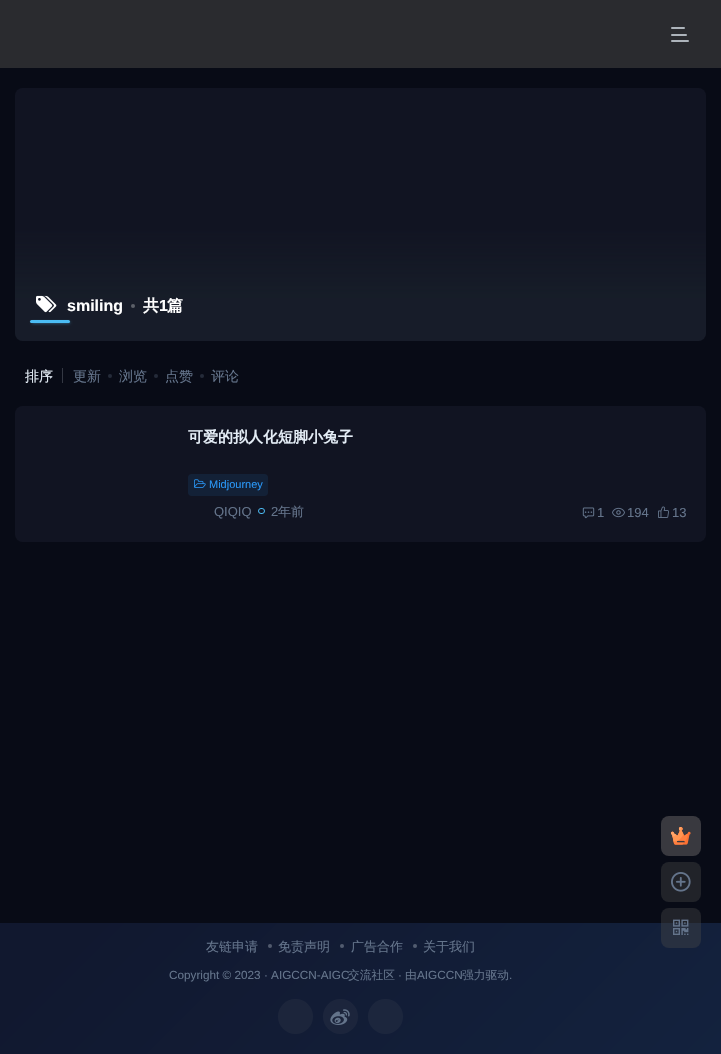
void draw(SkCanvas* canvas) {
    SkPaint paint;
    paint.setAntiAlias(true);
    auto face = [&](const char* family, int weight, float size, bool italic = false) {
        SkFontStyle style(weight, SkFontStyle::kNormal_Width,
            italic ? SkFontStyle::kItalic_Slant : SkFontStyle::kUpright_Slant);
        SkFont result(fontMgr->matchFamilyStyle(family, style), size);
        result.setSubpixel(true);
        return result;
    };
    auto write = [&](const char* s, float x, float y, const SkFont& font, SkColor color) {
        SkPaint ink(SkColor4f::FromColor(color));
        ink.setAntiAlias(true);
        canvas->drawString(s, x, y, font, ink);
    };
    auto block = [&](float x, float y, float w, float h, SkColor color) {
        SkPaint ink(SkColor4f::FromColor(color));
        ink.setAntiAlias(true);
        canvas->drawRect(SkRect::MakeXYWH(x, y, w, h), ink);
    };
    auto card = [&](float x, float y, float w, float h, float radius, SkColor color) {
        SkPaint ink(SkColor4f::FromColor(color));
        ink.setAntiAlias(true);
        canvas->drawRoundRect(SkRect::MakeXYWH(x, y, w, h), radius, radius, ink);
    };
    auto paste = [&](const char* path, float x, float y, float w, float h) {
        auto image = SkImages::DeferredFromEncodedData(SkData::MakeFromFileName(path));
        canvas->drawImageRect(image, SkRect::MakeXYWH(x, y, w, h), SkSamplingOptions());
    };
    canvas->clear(SkColorSetRGB(8, 11, 22));
    block(0, 0, 721, 68, SkColorSetRGB(42, 43, 47));
    card(671, 27, 14, 2, 1, SkColorSetRGB(173, 180, 187));
    card(671, 34, 16, 2, 1, SkColorSetRGB(173, 180, 187));
    card(671, 40, 18, 2, 1, SkColorSetRGB(173, 180, 187));
    card(15, 88, 691, 253, 8, SkColorSetRGB(17, 20, 34));
    {
        const SkColor colors[] = {SkColorSetARGB(102, 29, 41, 49), SkColorSetARGB(0, 29, 41, 49)};
        const float stops[] = {0.17f, 0.44f};
        const SkPoint ends[] = {{361, 341}, {361, 88}};
        paint.setShader(SkGradientShader::MakeLinear(ends, colors, stops, 2, SkTileMode::kClamp));
        paint.setAlpha(255);
    }
    canvas->drawRoundRect(SkRect::MakeXYWH(15, 88, 691, 253), 8, 8, paint);
    paste("pic1.png", 36, 295, 21, 18);
    auto kFont1 = face("Liberation Sans", 700, 16);
    write("smiling", 67, 311, kFont1, SK_ColorWHITE);
    paint.setShader(nullptr);
    paint.setColor(SkColorSetRGB(92, 96, 105));
    canvas->drawCircle(133, 306, 2, paint);
    auto kFont2 = face("WenQuanYi Zen Hei", 700, 16);
    write("共", 143, 311, kFont2, SK_ColorWHITE);
    write("1", 159, 311, kFont1, SK_ColorWHITE);
    write("篇", 167, 311, kFont2, SK_ColorWHITE);
    paint.setColor(SkColorSetRGB(75, 188, 244));
    paint.setMaskFilter(SkMaskFilter::MakeBlur(kNormal_SkBlurStyle, 1.5f));
    canvas->drawRoundRect(SkRect::MakeXYWH(32, 322, 38, 1), 0.5f, 0.5f, paint);
    paint.setMaskFilter(nullptr);
    card(30, 320, 40, 3, 1.5f, SkColorSetRGB(75, 188, 244));
    auto kFont3 = face("WenQuanYi Zen Hei", 500, 14);
    write("排序", 25, 381, kFont3, SkColorSetRGB(229, 238, 247));
    block(62, 368, 1, 15, SkColorSetRGB(52, 56, 67));
    write("更新", 73, 381, kFont3, SkColorSetRGB(100, 116, 139));
    paint.setColor(SkColorSetRGB(36, 43, 57));
    canvas->drawCircle(110, 376, 2, paint);
    write("浏览", 119, 381, kFont3, SkColorSetRGB(100, 116, 139));
    canvas->drawCircle(156, 376, 2, paint);
    write("点赞", 165, 381, kFont3, SkColorSetRGB(100, 116, 139));
    canvas->drawCircle(202, 376, 2, paint);
    write("评论", 211, 381, kFont3, SkColorSetRGB(100, 116, 139));
    card(15, 406, 691, 136, 8, SkColorSetRGB(17, 20, 34));
    auto kFont4 = face("WenQuanYi Zen Hei", 700, 15);
    write("可爱的拟人化短脚小兔子", 188, 442, kFont4, SkColorSetRGB(229, 238, 247));
    card(188, 474, 80, 22, 4, SkColorSetRGB(19, 33, 55));
    paste("pic2.png", 194, 479, 12, 9);
    auto kFont5 = face("Liberation Sans", 400, 11);
    write("Midjourney", 209, 488, kFont5, SkColorSetRGB(41, 151, 247));
    auto kFont6 = face("Liberation Sans", 400, 13);
    write("QIQIQ", 214, 516, kFont6, SkColorSetRGB(100, 116, 139));
    paint.setStyle(SkPaint::kStroke_Style);
    paint.setStrokeWidth(1);
    paint.setColor(SkColorSetRGB(75, 188, 244));
    canvas->drawRoundRect(SkRect::MakeXYWH(258.5f, 508.5f, 6, 5), 2.5f, 2.5f, paint);
    write("2", 271, 516, kFont6, SkColorSetRGB(100, 116, 139));
    auto kFont7 = face("WenQuanYi Zen Hei", 500, 13);
    write("年前", 278, 516, kFont7, SkColorSetRGB(100, 116, 139));
    paste("pic3.png", 582, 507, 13, 12);
    write("1", 597, 517, kFont6, SkColorSetRGB(100, 116, 139));
    paste("pic4.png", 612, 507, 13, 11);
    write("194", 627, 517, kFont6, SkColorSetRGB(100, 116, 139));
    paste("pic5.png", 658, 506, 11, 12);
    write("13", 672, 517, kFont6, SkColorSetRGB(100, 116, 139));
    card(661, 816, 40, 40, 8, SkColorSetRGB(57, 57, 63));
    paste("pic6.png", 671, 827, 20, 18);
    card(661, 862, 40, 40, 8, SkColorSetRGB(33, 35, 41));
    paste("pic7.png", 671, 872, 20, 20);
    paint.setStyle(SkPaint::kFill_Style);
    {
        const SkColor colors[] = {SkColorSetRGB(17, 24, 47), SkColorSetRGB(19, 34, 62)};
        const float stops[] = {0.1f, 1};
        const SkPoint ends[] = {{148, 776}, {574, 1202}};
        paint.setShader(SkGradientShader::MakeLinear(ends, colors, stops, 2, SkTileMode::kClamp));
        paint.setAlpha(255);
    }
    canvas->drawRect(SkRect::MakeXYWH(0, 923, 721, 131), paint);
    card(661, 908, 40, 40, 8, SkColorSetARGB(102, 70, 70, 70));
    paste("pic8.png", 673, 919, 16, 16);
    write("友链申请", 206, 951, kFont7, SkColorSetRGB(100, 116, 139));
    paint.setShader(nullptr);
    paint.setColor(SkColorSetRGB(81, 90, 110));
    canvas->drawCircle(270, 946, 2, paint);
    write("免责声明", 278, 951, kFont7, SkColorSetRGB(100, 116, 139));
    paint.setColor(SkColorSetRGB(81, 91, 111));
    canvas->drawCircle(342, 946, 2, paint);
    write("广告合作", 351, 951, kFont7, SkColorSetRGB(100, 116, 139));
    paint.setColor(SkColorSetRGB(81, 92, 112));
    canvas->drawCircle(415, 946, 2, paint);
    write("关于我们", 423, 951, kFont7, SkColorSetRGB(100, 116, 139));
    auto kFont8 = face("Liberation Sans", 400, 11.75f);
    write("Copyright © 2023 · AIGCCN-AIGC", 169, 979, kFont8, SkColorSetRGB(100, 116, 139));
    auto kFont9 = face("WenQuanYi Zen Hei", 500, 11.75f);
    write("交流社区", 348, 979, kFont9, SkColorSetRGB(100, 116, 139));
    write("·", 398, 979, kFont8, SkColorSetRGB(100, 116, 139));
    write("由", 405, 979, kFont9, SkColorSetRGB(100, 116, 139));
    write("AIGCCN", 417, 979, kFont8, SkColorSetRGB(100, 116, 139));
    write("强力驱动", 462, 979, kFont9, SkColorSetRGB(100, 116, 139));
    write(".", 509, 979, kFont8, SkColorSetRGB(100, 116, 139));
    paint.setColor(SkColorSetRGB(28, 37, 59));
    canvas->drawCircle(295.5f, 1016.5f, 17.5f, paint);
    paint.setColor(SkColorSetRGB(28, 37, 60));
    canvas->drawCircle(340.5f, 1016.5f, 17.5f, paint);
    paste("pic9.png", 330, 1009, 20, 16);
    paint.setColor(SkColorSetRGB(28, 38, 61));
    canvas->drawCircle(385.5f, 1016.5f, 17.5f, paint);
}
